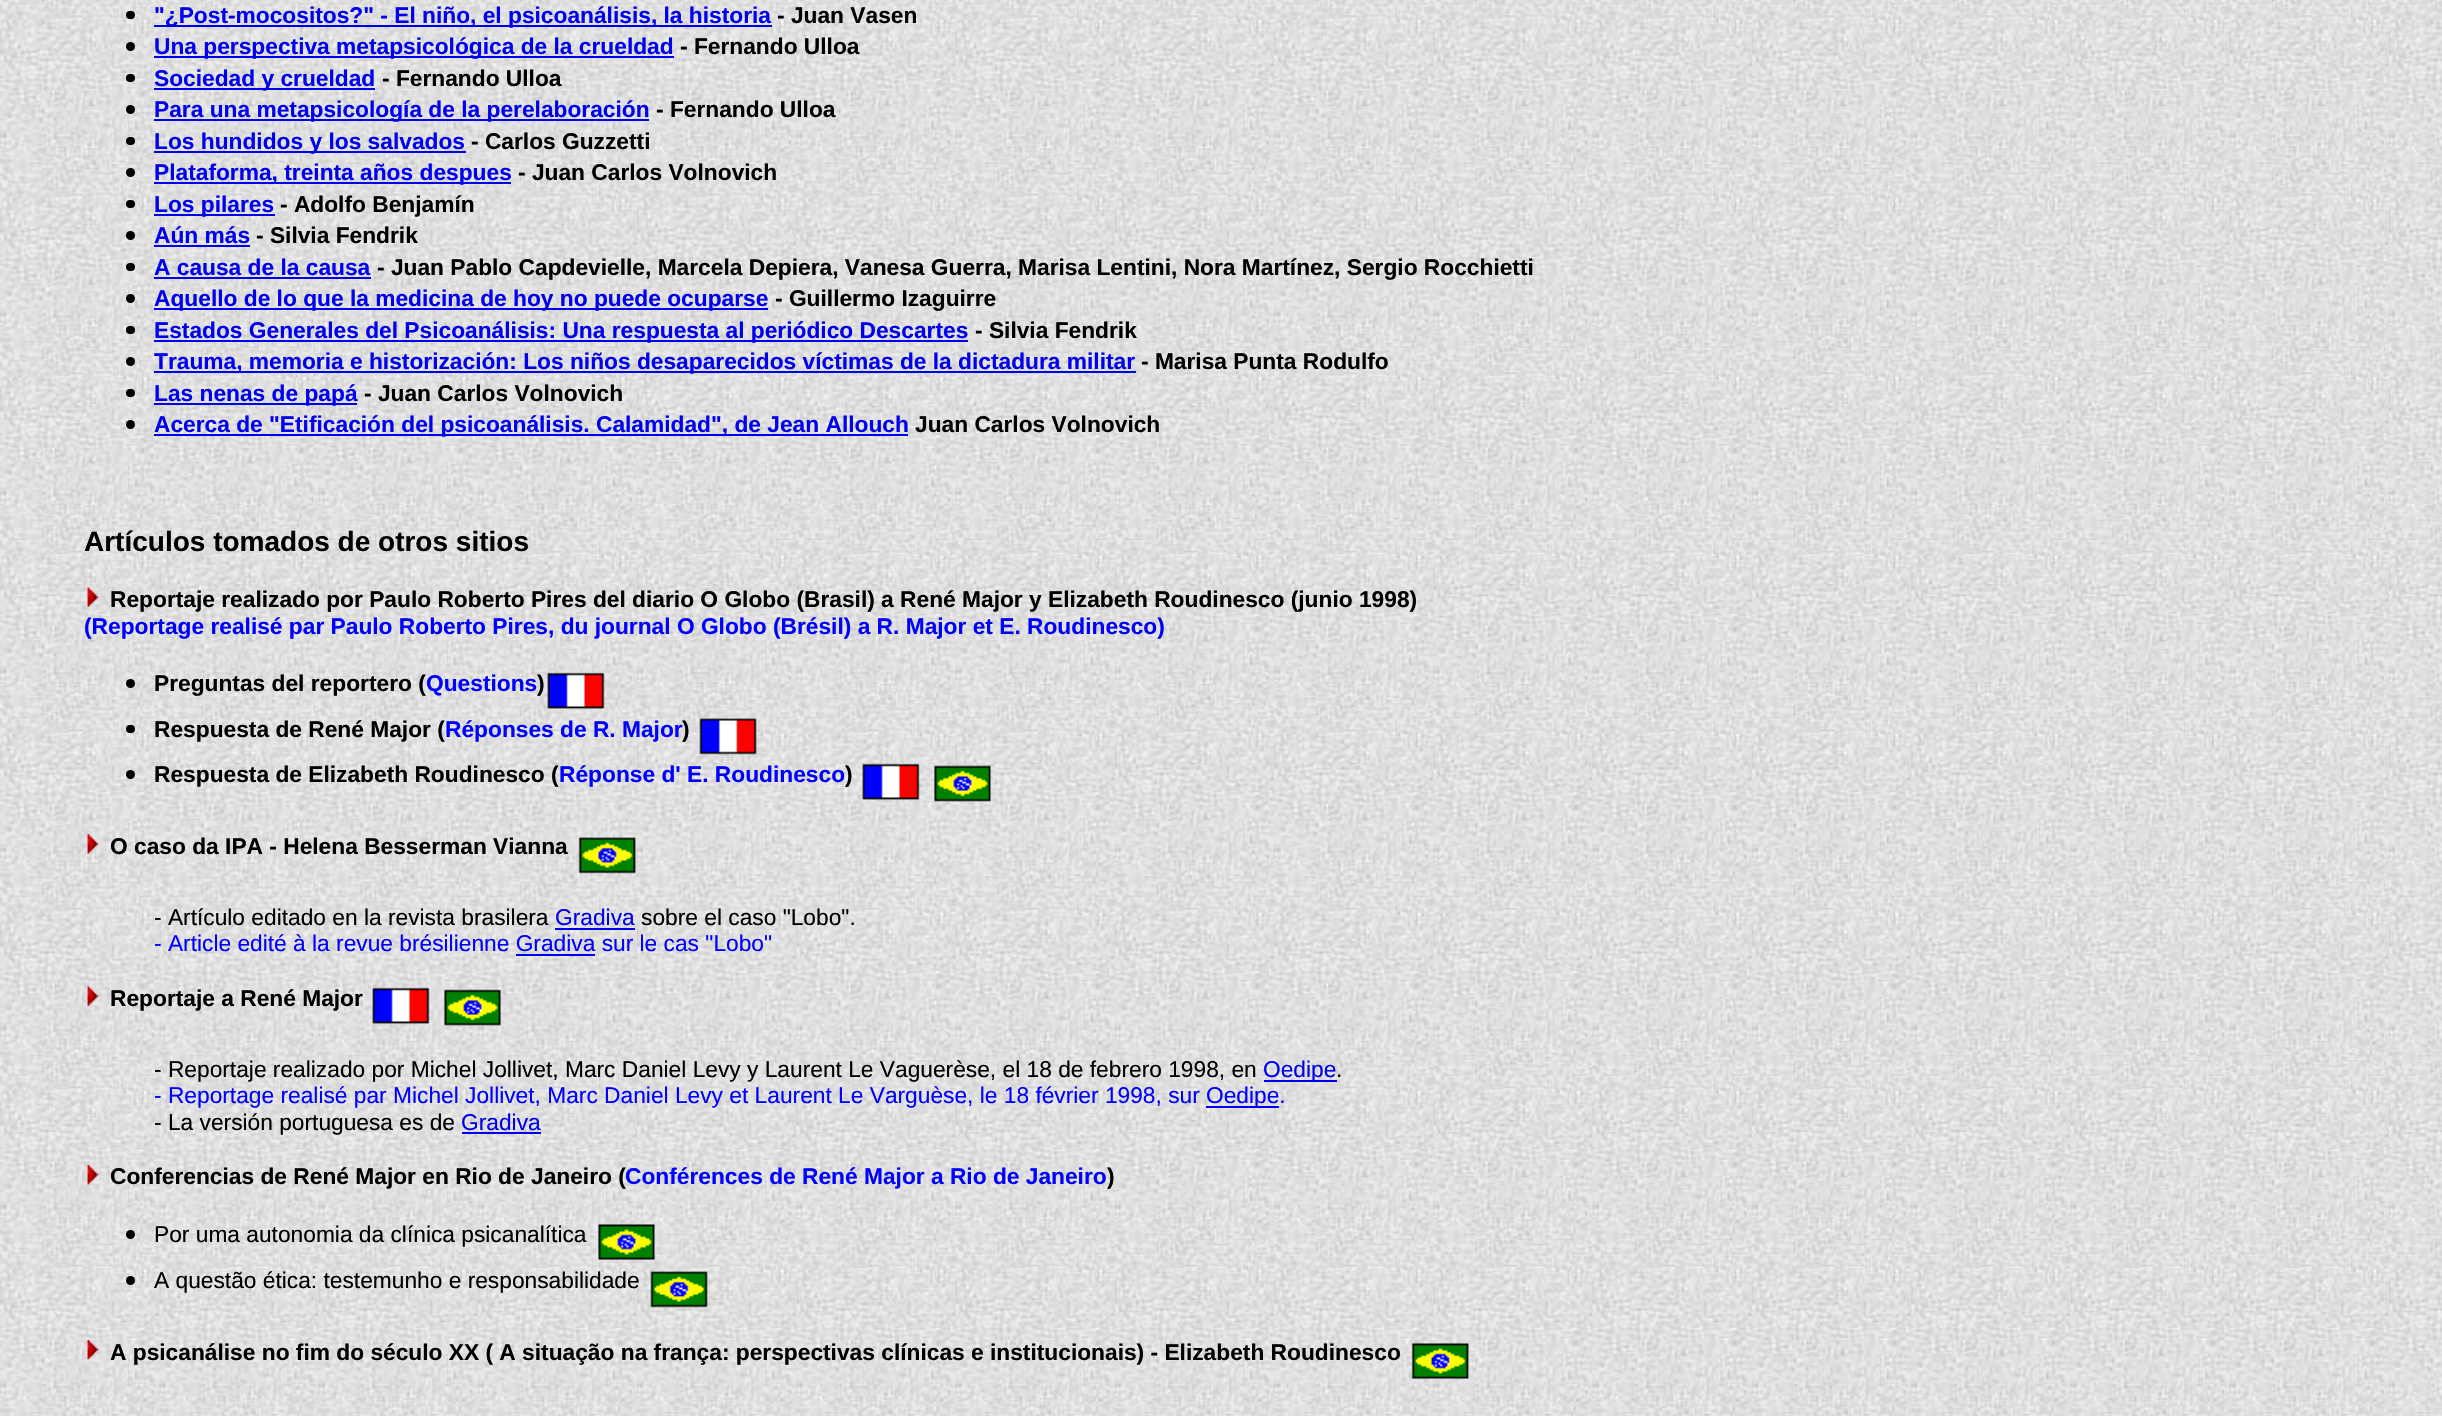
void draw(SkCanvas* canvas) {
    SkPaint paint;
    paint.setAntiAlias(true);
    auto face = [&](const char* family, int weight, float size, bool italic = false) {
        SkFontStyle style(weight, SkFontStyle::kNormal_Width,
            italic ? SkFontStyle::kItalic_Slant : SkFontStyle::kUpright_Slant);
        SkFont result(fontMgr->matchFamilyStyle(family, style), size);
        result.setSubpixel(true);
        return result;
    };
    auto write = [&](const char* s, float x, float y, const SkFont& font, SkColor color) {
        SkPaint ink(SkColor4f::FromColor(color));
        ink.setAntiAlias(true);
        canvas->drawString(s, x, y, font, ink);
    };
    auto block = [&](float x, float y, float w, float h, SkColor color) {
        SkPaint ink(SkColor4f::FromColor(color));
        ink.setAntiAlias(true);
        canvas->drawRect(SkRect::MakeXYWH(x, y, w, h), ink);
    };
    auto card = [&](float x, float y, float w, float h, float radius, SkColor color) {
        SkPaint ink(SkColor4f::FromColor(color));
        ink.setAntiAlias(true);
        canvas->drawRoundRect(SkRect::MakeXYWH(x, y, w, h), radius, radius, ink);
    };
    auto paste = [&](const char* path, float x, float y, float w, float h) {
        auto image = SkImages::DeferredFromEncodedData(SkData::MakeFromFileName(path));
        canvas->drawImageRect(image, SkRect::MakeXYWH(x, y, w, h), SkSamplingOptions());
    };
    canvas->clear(SK_ColorWHITE);
    paste("pic1.png", 0, 0, 2442, 1416);
    card(126, 11, 9, 8, 4, SK_ColorBLACK);
    block(154, 25, 618, 2, SkColorSetRGB(0, 0, 238));
    auto kFont1 = face("Liberation Sans", 700, 22.75f);
    write("\"¿Post-mocositos?\" - El niño, el psicoanálisis, la historia", 154, 23, kFont1, SkColorSetRGB(0, 0, 238));
    write("- Juan Vasen", 777, 23, kFont1, SK_ColorBLACK);
    paint.setColor(SK_ColorBLACK);
    canvas->drawCircle(130.5f, 46.5f, 4.5f, paint);
    block(154, 56, 520, 2, SkColorSetRGB(0, 0, 238));
    write("Una perspectiva metapsicológica de la crueldad", 154, 54, kFont1, SkColorSetRGB(0, 0, 238));
    write("- Fernando Ulloa", 680, 54, kFont1, SK_ColorBLACK);
    card(126, 74, 9, 8, 4, SK_ColorBLACK);
    block(154, 88, 221, 2, SkColorSetRGB(0, 0, 238));
    write("Sociedad y crueldad", 154, 86, kFont1, SkColorSetRGB(0, 0, 238));
    write("- Fernando Ulloa", 382, 86, kFont1, SK_ColorBLACK);
    canvas->drawCircle(130.5f, 109.5f, 4.5f, paint);
    block(154, 119, 495, 2, SkColorSetRGB(0, 0, 238));
    write("Para una metapsicología de la perelaboración", 154, 117, kFont1, SkColorSetRGB(0, 0, 238));
    write("- Fernando Ulloa", 656, 117, kFont1, SK_ColorBLACK);
    card(126, 137, 9, 8, 4, SK_ColorBLACK);
    block(154, 151, 312, 2, SkColorSetRGB(0, 0, 238));
    write("Los hundidos y los salvados", 154, 149, kFont1, SkColorSetRGB(0, 0, 238));
    write("- Carlos Guzzetti", 471, 149, kFont1, SK_ColorBLACK);
    canvas->drawCircle(130.5f, 172.5f, 4.5f, paint);
    block(154, 182, 357, 2, SkColorSetRGB(0, 0, 238));
    write("Plataforma, treinta años despues", 154, 180, kFont1, SkColorSetRGB(0, 0, 238));
    write("- Juan Carlos Volnovich", 518, 180, kFont1, SK_ColorBLACK);
    card(126, 200, 9, 8, 4, SK_ColorBLACK);
    block(154, 214, 121, 2, SkColorSetRGB(0, 0, 238));
    write("Los pilares", 154, 212, kFont1, SkColorSetRGB(0, 0, 238));
    write("- Adolfo Benjamín", 280, 212, kFont1, SK_ColorBLACK);
    canvas->drawCircle(130.5f, 235.5f, 4.5f, paint);
    write("Aún más", 154, 243, kFont1, SkColorSetRGB(0, 0, 238));
    block(154, 245, 96, 2, SkColorSetRGB(0, 0, 238));
    write("- Silvia Fendrik", 256, 243, kFont1, SK_ColorBLACK);
    card(126, 263, 9, 8, 4, SK_ColorBLACK);
    write("A causa de la causa", 154, 275, kFont1, SkColorSetRGB(0, 0, 238));
    block(154, 277, 217, 2, SkColorSetRGB(0, 0, 238));
    write("- Juan Pablo Capdevielle, Marcela Depiera, Vanesa Guerra, Marisa Lentini, Nora Martínez, Sergio Rocchietti", 377, 275, kFont1, SK_ColorBLACK);
    canvas->drawCircle(130.5f, 298.5f, 4.5f, paint);
    block(154, 308, 614, 2, SkColorSetRGB(0, 0, 238));
    write("Aquello de lo que la medicina de hoy no puede ocuparse", 154, 306, kFont1, SkColorSetRGB(0, 0, 238));
    write("- Guillermo Izaguirre", 775, 306, kFont1, SK_ColorBLACK);
    card(126, 326, 9, 8, 4, SK_ColorBLACK);
    block(154, 340, 814, 2, SkColorSetRGB(0, 0, 238));
    write("Estados Generales del Psicoanálisis: Una respuesta al periódico Descartes", 154, 338, kFont1, SkColorSetRGB(0, 0, 238));
    write("- Silvia Fendrik", 975, 338, kFont1, SK_ColorBLACK);
    canvas->drawCircle(130.5f, 361.5f, 4.5f, paint);
    block(154, 371, 982, 2, SkColorSetRGB(0, 0, 238));
    write("Trauma, memoria e historización: Los niños desaparecidos víctimas de la dictadura militar", 154, 369, kFont1, SkColorSetRGB(0, 0, 238));
    write("- Marisa Punta Rodulfo", 1141, 369, kFont1, SK_ColorBLACK);
    card(126, 389, 9, 8, 4, SK_ColorBLACK);
    block(154, 403, 203, 2, SkColorSetRGB(0, 0, 238));
    write("Las nenas de papá", 154, 401, kFont1, SkColorSetRGB(0, 0, 238));
    write("- Juan Carlos Volnovich", 364, 401, kFont1, SK_ColorBLACK);
    canvas->drawCircle(130.5f, 424.5f, 4.5f, paint);
    block(154, 434, 754, 2, SkColorSetRGB(0, 0, 238));
    write("Acerca de \"Etificación del psicoanálisis. Calamidad\", de Jean Allouch", 154, 432, kFont1, SkColorSetRGB(0, 0, 238));
    write("Juan Carlos Volnovich", 915, 432, kFont1, SK_ColorBLACK);
    auto kFont2 = face("Liberation Sans", 700, 28);
    write("Artículos tomados de otros sitios", 84, 551, kFont2, SK_ColorBLACK);
    paste("pic2.png", 87, 587, 12, 20);
    write("Reportaje realizado por Paulo Roberto Pires del diario O Globo (Brasil) a René Major y Elizabeth Roudinesco (junio 1998)", 110, 607, kFont1, SK_ColorBLACK);
    write("(Reportage realisé par Paulo Roberto Pires, du journal O Globo (Brésil) a R. Major et E. Roudinesco)", 84, 634, kFont1, SkColorSetRGB(0, 0, 255));
    canvas->drawCircle(130.5f, 683.5f, 4.5f, paint);
    write("Preguntas del reportero (", 154, 691, kFont1, SK_ColorBLACK);
    write("Questions", 426, 691, kFont1, SkColorSetRGB(0, 0, 255));
    write(")", 537, 691, kFont1, SK_ColorBLACK);
    paste("pic3.png", 547, 672, 58, 37);
    card(126, 725, 9, 8, 4, SK_ColorBLACK);
    write("Respuesta de René Major (", 154, 737, kFont1, SK_ColorBLACK);
    write("Réponses de R. Major", 445, 737, kFont1, SkColorSetRGB(0, 0, 255));
    write(")", 682, 737, kFont1, SK_ColorBLACK);
    paste("pic4.png", 699, 718, 58, 37);
    canvas->drawCircle(130.5f, 774.5f, 4.5f, paint);
    write("Respuesta de Elizabeth Roudinesco (", 154, 782, kFont1, SK_ColorBLACK);
    write("Réponse d' E. Roudinesco", 559, 782, kFont1, SkColorSetRGB(0, 0, 255));
    write(")", 845, 782, kFont1, SK_ColorBLACK);
    paste("pic5.png", 862, 763, 58, 37);
    paste("pic6.png", 934, 765, 57, 37);
    paste("pic7.png", 87, 834, 12, 20);
    write("O caso da IPA - Helena Besserman Vianna", 110, 854, kFont1, SK_ColorBLACK);
    paste("pic8.png", 578, 837, 58, 37);
    auto kFont3 = face("Liberation Sans", 400, 22.75f);
    write("- Artículo editado en la revista brasilera", 154, 925, kFont3, SK_ColorBLACK);
    write("Gradiva", 555, 925, kFont3, SkColorSetRGB(0, 0, 238));
    block(555, 928, 80, 2, SkColorSetRGB(0, 0, 238));
    write("sobre el caso \"Lobo\".", 641, 925, kFont3, SK_ColorBLACK);
    write("- Article edité à la revue brésilienne Gradiva sur le cas \"Lobo\"", 154, 951, kFont3, SkColorSetRGB(0, 0, 255));
    block(516, 954, 79, 2, SkColorSetRGB(0, 0, 238));
    paste("pic9.png", 87, 986, 12, 20);
    write("Reportaje a René Major", 110, 1006, kFont1, SK_ColorBLACK);
    paste("pic10.png", 372, 987, 58, 37);
    paste("pic11.png", 444, 989, 57, 37);
    write("- Reportaje realizado por Michel Jollivet, Marc Daniel Levy y Laurent Le Vaguerèse, el 18 de febrero 1998, en", 154, 1077, kFont3, SK_ColorBLACK);
    block(1264, 1080, 73, 2, SkColorSetRGB(0, 0, 238));
    write("Oedipe", 1263, 1077, kFont3, SkColorSetRGB(0, 0, 238));
    write(".", 1336, 1077, kFont3, SK_ColorBLACK);
    write("- Reportage realisé par Michel Jollivet, Marc Daniel Levy et Laurent Le Varguèse, le 18 février 1998, sur", 154, 1103, kFont3, SkColorSetRGB(0, 0, 255));
    block(1206, 1106, 73, 2, SkColorSetRGB(0, 0, 238));
    write("Oedipe.", 1206, 1103, kFont3, SkColorSetRGB(0, 0, 255));
    write("- La versión portuguesa es de", 154, 1130, kFont3, SK_ColorBLACK);
    write("Gradiva", 461, 1130, kFont3, SkColorSetRGB(0, 0, 238));
    block(462, 1132, 79, 2, SkColorSetRGB(0, 0, 238));
    paste("pic12.png", 87, 1165, 12, 20);
    write("Conferencias de René Major en Rio de Janeiro (", 110, 1184, kFont1, SK_ColorBLACK);
    write("Conférences de René Major a Rio de Janeiro", 625, 1184, kFont1, SkColorSetRGB(0, 0, 255));
    write(")", 1107, 1184, kFont1, SK_ColorBLACK);
    canvas->drawCircle(130.5f, 1234.5f, 4.5f, paint);
    write("Por uma autonomia da clínica psicanalítica", 154, 1242, kFont3, SK_ColorBLACK);
    paste("pic13.png", 598, 1224, 57, 36);
    canvas->drawCircle(130.5f, 1280.5f, 4.5f, paint);
    write("A questão ética: testemunho e responsabilidade", 154, 1288, kFont3, SK_ColorBLACK);
    paste("pic14.png", 650, 1271, 58, 37);
    paste("pic15.png", 87, 1340, 12, 20);
    write("A psicanálise no fim do século XX ( A situação na frança: perspectivas clínicas e institucionais) - Elizabeth Roudinesco", 110, 1360, kFont1, SK_ColorBLACK);
    paste("pic16.png", 1411, 1343, 58, 36);
}
